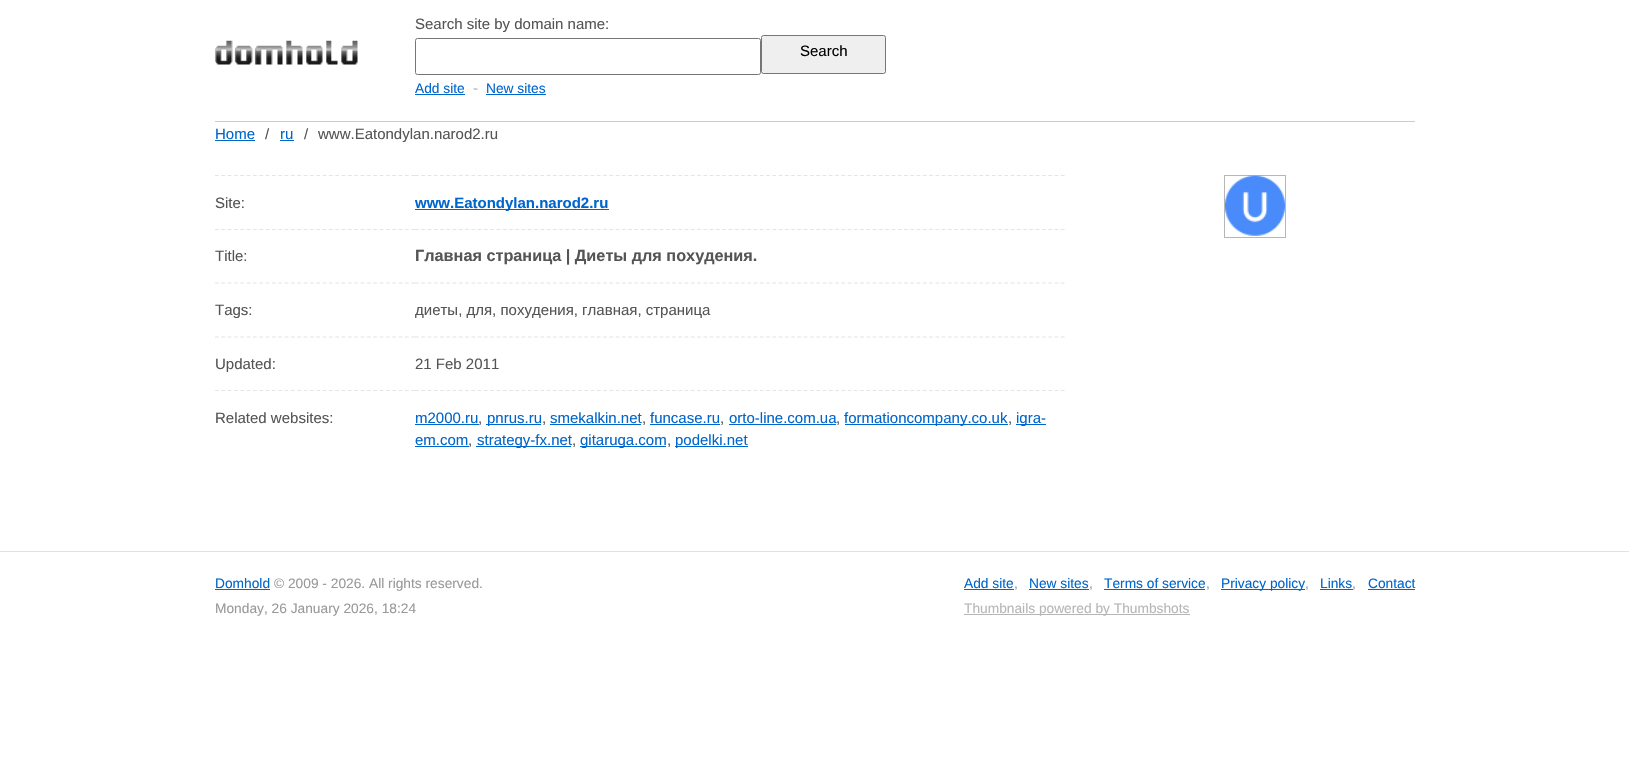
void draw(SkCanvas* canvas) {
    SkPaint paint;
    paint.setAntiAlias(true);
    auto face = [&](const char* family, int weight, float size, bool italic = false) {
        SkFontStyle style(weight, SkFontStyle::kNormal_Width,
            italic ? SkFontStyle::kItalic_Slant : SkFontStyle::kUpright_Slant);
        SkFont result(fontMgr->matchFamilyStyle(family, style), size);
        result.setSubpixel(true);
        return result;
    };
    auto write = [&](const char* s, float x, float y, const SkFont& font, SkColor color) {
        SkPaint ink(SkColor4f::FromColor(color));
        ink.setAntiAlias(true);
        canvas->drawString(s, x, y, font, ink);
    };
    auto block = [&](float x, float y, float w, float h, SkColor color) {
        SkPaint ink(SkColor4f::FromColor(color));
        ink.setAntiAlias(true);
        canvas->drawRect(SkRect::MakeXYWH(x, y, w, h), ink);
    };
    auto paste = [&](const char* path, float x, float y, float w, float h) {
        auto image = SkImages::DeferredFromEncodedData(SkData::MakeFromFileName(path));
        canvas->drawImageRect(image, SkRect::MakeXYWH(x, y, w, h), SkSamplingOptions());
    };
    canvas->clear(SK_ColorWHITE);
    paste("pic1.png", 215, 40, 143, 25);
    auto kFont1 = face("Liberation Sans", 400, 15);
    write("Search site by domain name:", 415, 29, kFont1, SkColorSetRGB(85, 85, 85));
    paint.setStyle(SkPaint::kStroke_Style);
    paint.setStrokeWidth(1);
    paint.setColor(SkColorSetRGB(118, 118, 118));
    canvas->drawRoundRect(SkRect::MakeXYWH(415.5f, 38.5f, 345, 36), 2, 2, paint);
    paint.setStyle(SkPaint::kFill_Style);
    paint.setColor(SkColorSetRGB(239, 239, 239));
    canvas->drawRoundRect(SkRect::MakeXYWH(761.5f, 35.5f, 124, 38), 2, 2, paint);
    paint.setStyle(SkPaint::kStroke_Style);
    paint.setColor(SkColorSetRGB(118, 118, 118));
    canvas->drawRoundRect(SkRect::MakeXYWH(761.5f, 35.5f, 124, 38), 2, 2, paint);
    write("Search", 800, 56, kFont1, SK_ColorBLACK);
    auto kFont2 = face("Liberation Sans", 400, 13.75f);
    write("Add site", 415, 93, kFont2, SkColorSetRGB(0, 102, 204));
    block(415, 94, 50, 1, SkColorSetRGB(0, 102, 204));
    write("-", 473, 93, kFont1, SkColorSetRGB(182, 182, 182));
    write("New sites", 486, 93, kFont2, SkColorSetRGB(0, 102, 204));
    block(486, 94, 60, 1, SkColorSetRGB(0, 102, 204));
    block(215, 121, 1200, 1, SkColorSetRGB(204, 204, 204));
    write("Home", 215, 139, kFont1, SkColorSetRGB(0, 102, 204));
    block(215, 140, 40, 1, SkColorSetRGB(0, 102, 204));
    write("/", 265, 139, kFont1, SkColorSetRGB(85, 85, 85));
    write("ru", 280, 139, kFont1, SkColorSetRGB(0, 102, 204));
    block(280, 140, 14, 1, SkColorSetRGB(0, 102, 204));
    write("/", 304, 139, kFont1, SkColorSetRGB(85, 85, 85));
    write("www.Eatondylan.narod2.ru", 318, 139, kFont1, SkColorSetRGB(85, 85, 85));
    paint.setStrokeWidth(1.2f);
    paint.setColor(SkColorSetRGB(228, 228, 228));
    paint.setPathEffect(SkDashPathEffect::Make({{3.75f, 2.58f}}, 0));
    canvas->drawPath(SkPathBuilder().moveTo(215, 175.5f).lineTo(415, 175.5f).detach(), paint);
    paint.setPathEffect(nullptr);
    write("Site:", 215, 208, kFont1, SkColorSetRGB(85, 85, 85));
    paint.setPathEffect(SkDashPathEffect::Make({{3.75f, 2.52f}}, 0));
    canvas->drawPath(SkPathBuilder().moveTo(415, 175.5f).lineTo(1065, 175.5f).detach(), paint);
    paint.setPathEffect(nullptr);
    block(415, 209, 194, 1, SkColorSetRGB(0, 102, 204));
    auto kFont3 = face("Liberation Sans", 700, 15);
    write("www.Eatondylan.narod2.ru", 415, 208, kFont3, SkColorSetRGB(0, 102, 204));
    paint.setPathEffect(SkDashPathEffect::Make({{3.75f, 2.58f}}, 0));
    canvas->drawPath(SkPathBuilder().moveTo(215, 229.5f).lineTo(415, 229.5f).detach(), paint);
    paint.setPathEffect(nullptr);
    write("Title:", 215, 261, kFont1, SkColorSetRGB(85, 85, 85));
    paint.setPathEffect(SkDashPathEffect::Make({{3.75f, 2.52f}}, 0));
    canvas->drawPath(SkPathBuilder().moveTo(415, 229.5f).lineTo(1065, 229.5f).detach(), paint);
    paint.setPathEffect(nullptr);
    auto kFont4 = face("Liberation Sans", 700, 16.25f);
    write("Главная страница | Диеты для похудения.", 415, 261, kFont4, SkColorSetRGB(85, 85, 85));
    paint.setPathEffect(SkDashPathEffect::Make({{3.75f, 2.58f}}, 0));
    canvas->drawPath(SkPathBuilder().moveTo(215, 283).lineTo(415, 283).detach(), paint);
    paint.setPathEffect(nullptr);
    write("Tags:", 215, 315, kFont1, SkColorSetRGB(85, 85, 85));
    paint.setPathEffect(SkDashPathEffect::Make({{3.75f, 2.52f}}, 0));
    canvas->drawPath(SkPathBuilder().moveTo(415, 283).lineTo(1065, 283).detach(), paint);
    paint.setPathEffect(nullptr);
    write("диеты, для, похудения, главная, страница", 415, 315, kFont1, SkColorSetRGB(85, 85, 85));
    paint.setPathEffect(SkDashPathEffect::Make({{3.75f, 2.58f}}, 0));
    canvas->drawPath(SkPathBuilder().moveTo(215, 337).lineTo(415, 337).detach(), paint);
    paint.setPathEffect(nullptr);
    write("Updated:", 215, 369, kFont1, SkColorSetRGB(85, 85, 85));
    paint.setPathEffect(SkDashPathEffect::Make({{3.75f, 2.52f}}, 0));
    canvas->drawPath(SkPathBuilder().moveTo(415, 337).lineTo(1065, 337).detach(), paint);
    paint.setPathEffect(nullptr);
    write("21 Feb 2011", 415, 369, kFont1, SkColorSetRGB(85, 85, 85));
    paint.setPathEffect(SkDashPathEffect::Make({{3.75f, 2.58f}}, 0));
    canvas->drawPath(SkPathBuilder().moveTo(215, 390.5f).lineTo(415, 390.5f).detach(), paint);
    paint.setPathEffect(nullptr);
    write("Related websites:", 215, 423, kFont1, SkColorSetRGB(85, 85, 85));
    paint.setPathEffect(SkDashPathEffect::Make({{3.75f, 2.52f}}, 0));
    canvas->drawPath(SkPathBuilder().moveTo(415, 390.5f).lineTo(1065, 390.5f).detach(), paint);
    paint.setPathEffect(nullptr);
    write("m2000.ru", 415, 423, kFont1, SkColorSetRGB(0, 102, 204));
    block(415, 424, 64, 1, SkColorSetRGB(0, 102, 204));
    write(",", 478, 423, kFont1, SkColorSetRGB(85, 85, 85));
    block(486, 424, 55, 1, SkColorSetRGB(0, 102, 204));
    write("pnrus.ru", 487, 423, kFont1, SkColorSetRGB(0, 102, 204));
    write(",", 542, 423, kFont1, SkColorSetRGB(85, 85, 85));
    write("smekalkin.net", 550, 423, kFont1, SkColorSetRGB(0, 102, 204));
    block(550, 424, 91, 1, SkColorSetRGB(0, 102, 204));
    write(",", 642, 423, kFont1, SkColorSetRGB(85, 85, 85));
    write("funcase.ru", 650, 423, kFont1, SkColorSetRGB(0, 102, 204));
    block(650, 424, 70, 1, SkColorSetRGB(0, 102, 204));
    write(",", 720, 423, kFont1, SkColorSetRGB(85, 85, 85));
    write("orto-line.com.ua", 729, 423, kFont1, SkColorSetRGB(0, 102, 204));
    block(729, 424, 107, 1, SkColorSetRGB(0, 102, 204));
    write(",", 836, 423, kFont1, SkColorSetRGB(85, 85, 85));
    block(845, 424, 163, 1, SkColorSetRGB(0, 102, 204));
    write("formationcompany.co.uk", 844, 423, kFont1, SkColorSetRGB(0, 102, 204));
    write(",", 1008, 423, kFont1, SkColorSetRGB(85, 85, 85));
    block(1016, 424, 30, 1, SkColorSetRGB(0, 102, 204));
    write("igra-", 1016, 423, kFont1, SkColorSetRGB(0, 102, 204));
    write("em.com", 415, 445, kFont1, SkColorSetRGB(0, 102, 204));
    block(415, 446, 54, 1, SkColorSetRGB(0, 102, 204));
    write(",", 468, 445, kFont1, SkColorSetRGB(85, 85, 85));
    block(476, 446, 95, 1, SkColorSetRGB(0, 102, 204));
    write("strategy-fx.net", 477, 445, kFont1, SkColorSetRGB(0, 102, 204));
    write(",", 572, 445, kFont1, SkColorSetRGB(85, 85, 85));
    block(580, 446, 86, 1, SkColorSetRGB(0, 102, 204));
    write("gitaruga.com", 580, 445, kFont1, SkColorSetRGB(0, 102, 204));
    write(",", 667, 445, kFont1, SkColorSetRGB(85, 85, 85));
    block(675, 446, 73, 1, SkColorSetRGB(0, 102, 204));
    write("podelki.net", 675, 445, kFont1, SkColorSetRGB(0, 102, 204));
    paint.setStrokeWidth(1);
    paint.setColor(SkColorSetRGB(182, 182, 182));
    canvas->drawRect(SkRect::MakeXYWH(1224.5f, 175.5f, 61, 62), paint);
    paste("pic2.png", 1225, 175, 60, 61);
    block(0, 551, 1629, 1, SkColorSetRGB(226, 226, 226));
    write("Domhold", 215, 588, kFont2, SkColorSetRGB(0, 102, 204));
    block(215, 589, 55, 1, SkColorSetRGB(0, 102, 204));
    write("© 2009 - 2026. All rights reserved.", 274, 588, kFont2, SkColorSetRGB(153, 153, 153));
    write("Monday, 26 January 2026, 18:24", 215, 613, kFont2, SkColorSetRGB(153, 153, 153));
    write("Add site", 964, 588, kFont2, SkColorSetRGB(0, 102, 204));
    block(964, 589, 50, 1, SkColorSetRGB(0, 102, 204));
    write(",", 1014, 588, kFont2, SkColorSetRGB(153, 153, 153));
    write("New sites", 1029, 588, kFont2, SkColorSetRGB(0, 102, 204));
    block(1029, 589, 60, 1, SkColorSetRGB(0, 102, 204));
    write(",", 1089, 588, kFont2, SkColorSetRGB(153, 153, 153));
    write("Terms of service", 1104, 588, kFont2, SkColorSetRGB(0, 102, 204));
    block(1104, 589, 101, 1, SkColorSetRGB(0, 102, 204));
    write(",", 1206, 588, kFont2, SkColorSetRGB(153, 153, 153));
    block(1221, 589, 84, 1, SkColorSetRGB(0, 102, 204));
    write("Privacy policy", 1221, 588, kFont2, SkColorSetRGB(0, 102, 204));
    write(",", 1305, 588, kFont2, SkColorSetRGB(153, 153, 153));
    write("Links", 1320, 588, kFont2, SkColorSetRGB(0, 102, 204));
    block(1320, 589, 33, 1, SkColorSetRGB(0, 102, 204));
    write(",", 1352, 588, kFont2, SkColorSetRGB(153, 153, 153));
    write("Contact", 1368, 588, kFont2, SkColorSetRGB(0, 102, 204));
    block(1368, 589, 47, 1, SkColorSetRGB(0, 102, 204));
    block(964, 614, 226, 1, SkColorSetRGB(182, 182, 182));
    write("Thumbnails powered by Thumbshots", 964, 613, kFont2, SkColorSetRGB(182, 182, 182));
}
